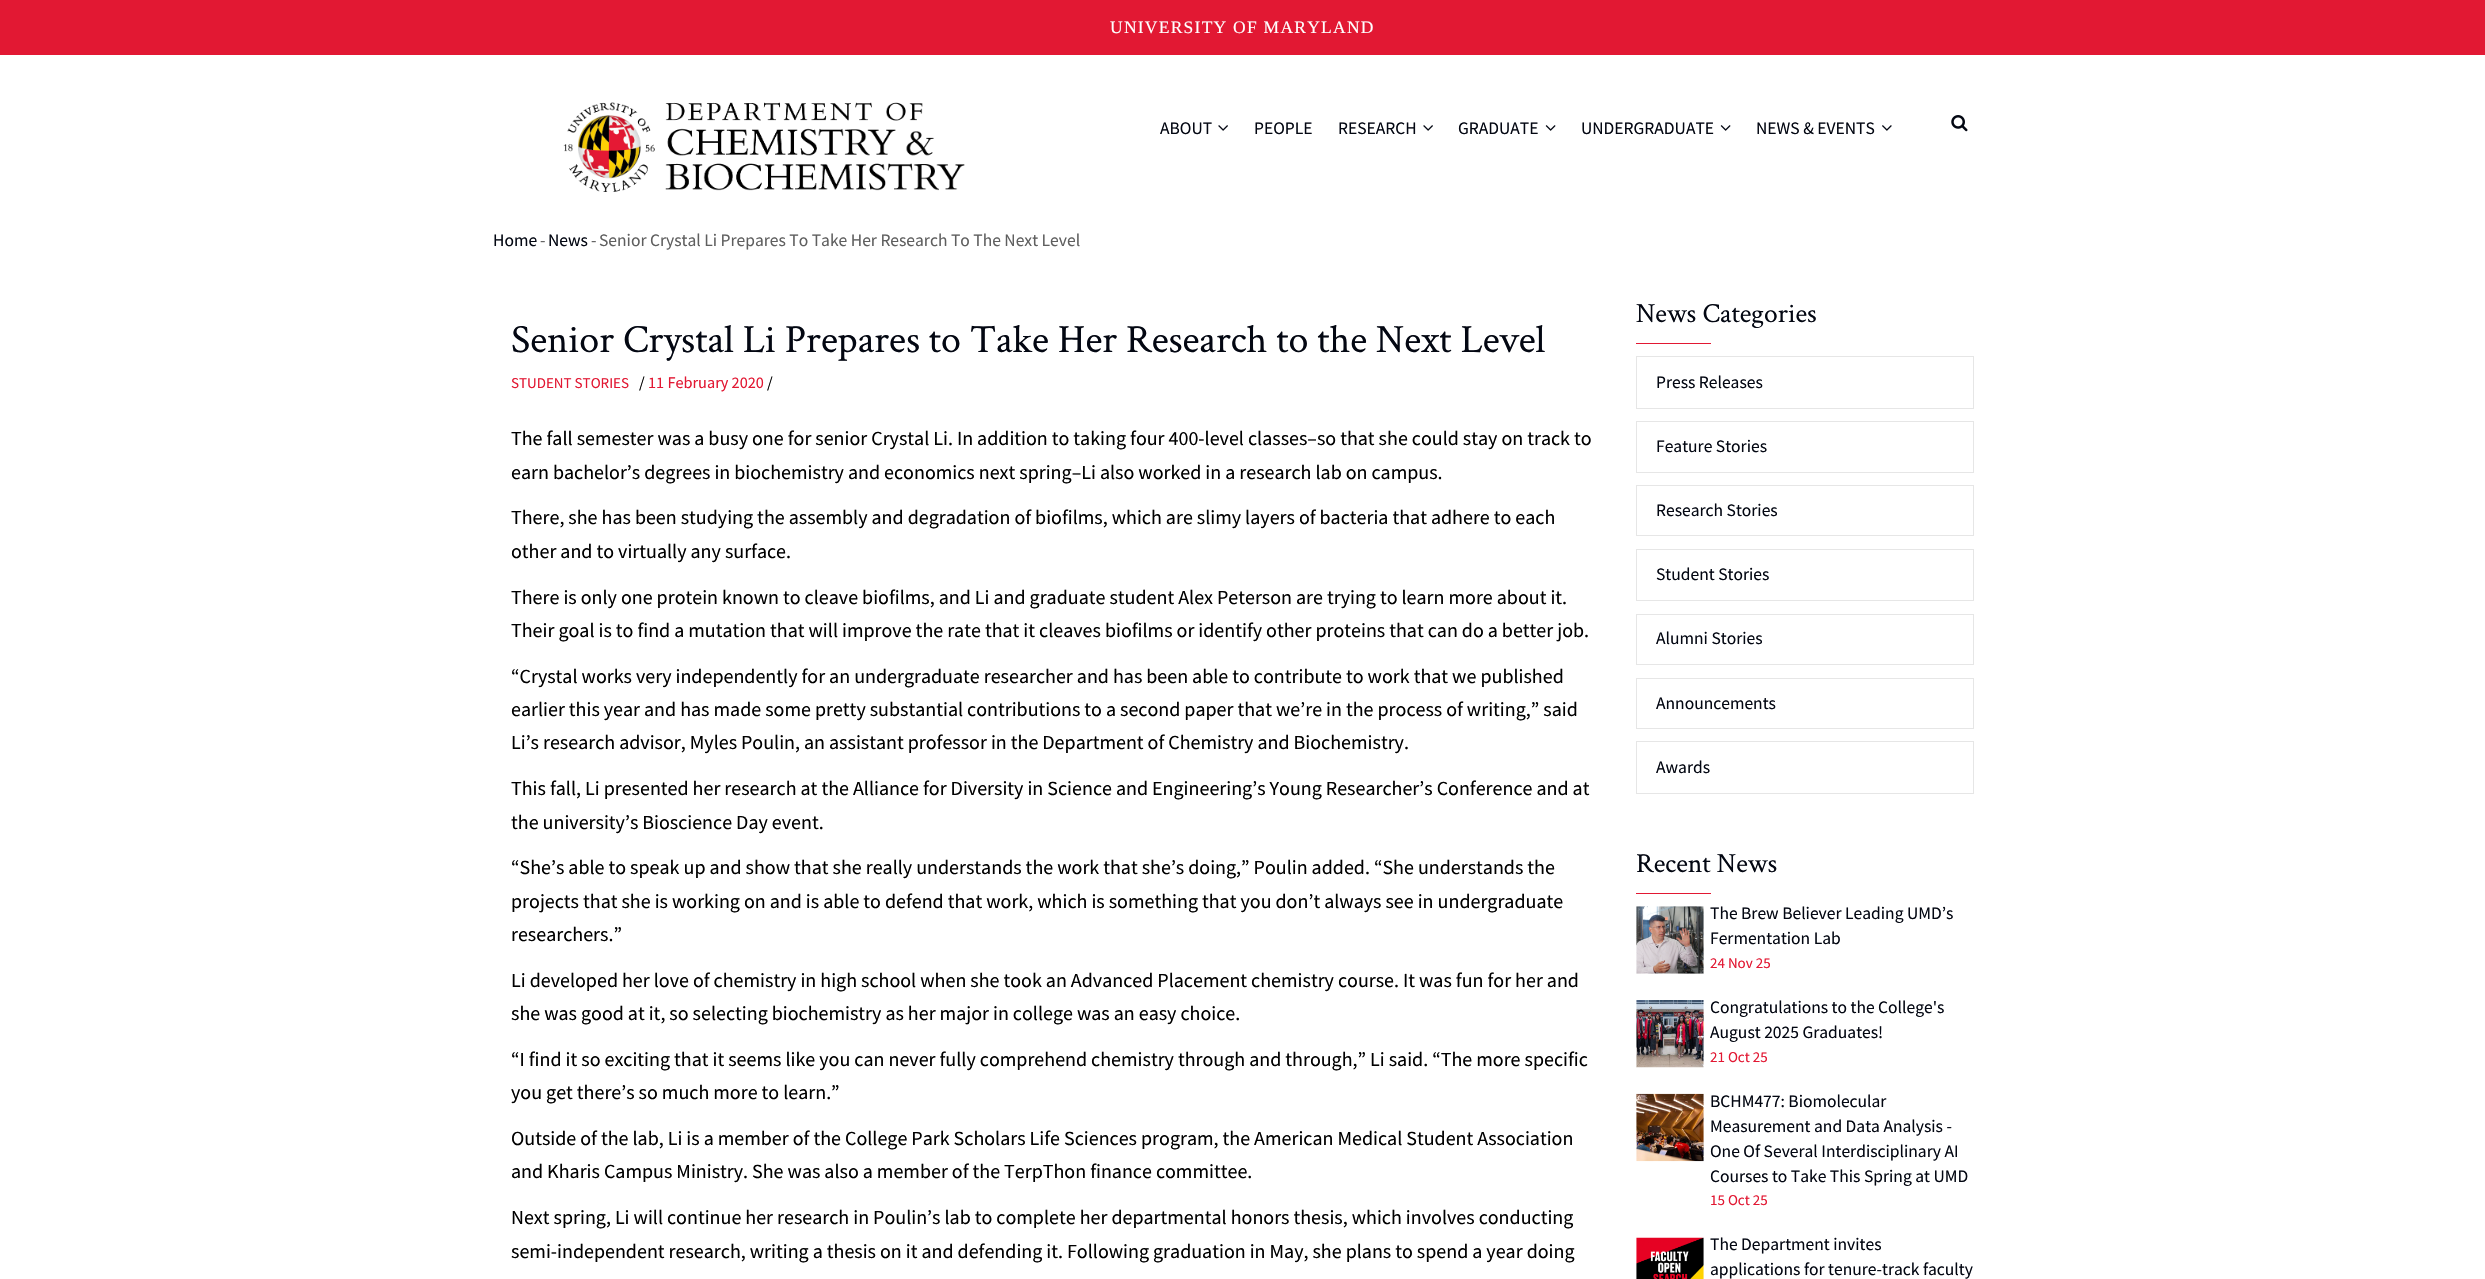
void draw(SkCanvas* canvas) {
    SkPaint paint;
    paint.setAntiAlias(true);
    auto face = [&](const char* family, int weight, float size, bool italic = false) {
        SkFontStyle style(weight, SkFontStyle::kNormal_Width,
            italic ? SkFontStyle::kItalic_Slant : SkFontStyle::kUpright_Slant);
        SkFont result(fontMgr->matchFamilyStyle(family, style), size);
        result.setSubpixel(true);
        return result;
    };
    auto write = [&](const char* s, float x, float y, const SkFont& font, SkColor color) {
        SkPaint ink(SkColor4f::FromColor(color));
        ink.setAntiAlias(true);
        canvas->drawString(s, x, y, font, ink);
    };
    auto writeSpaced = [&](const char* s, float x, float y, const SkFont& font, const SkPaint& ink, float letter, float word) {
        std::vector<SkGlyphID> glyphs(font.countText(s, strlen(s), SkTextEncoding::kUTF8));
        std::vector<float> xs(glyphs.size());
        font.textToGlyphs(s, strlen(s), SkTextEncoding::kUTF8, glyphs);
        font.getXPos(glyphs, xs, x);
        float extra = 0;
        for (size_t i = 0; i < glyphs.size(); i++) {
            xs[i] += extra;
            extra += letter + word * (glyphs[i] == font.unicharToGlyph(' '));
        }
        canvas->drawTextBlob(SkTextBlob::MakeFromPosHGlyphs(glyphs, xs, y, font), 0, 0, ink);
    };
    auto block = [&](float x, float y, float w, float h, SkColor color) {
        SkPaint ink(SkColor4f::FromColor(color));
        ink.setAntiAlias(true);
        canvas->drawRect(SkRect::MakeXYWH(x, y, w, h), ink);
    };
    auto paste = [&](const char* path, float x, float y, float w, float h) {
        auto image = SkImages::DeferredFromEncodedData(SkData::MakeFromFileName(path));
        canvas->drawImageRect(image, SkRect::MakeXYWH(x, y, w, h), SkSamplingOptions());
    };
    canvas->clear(SK_ColorWHITE);
    block(0, 0, 2485, 55, SkColorSetRGB(226, 24, 51));
    auto kFont1 = face("Liberation Serif", 400, 17.5f);
    paint.setColor(SK_ColorWHITE);
    writeSpaced("UNIVERSITY OF MARYLAND", 1110, 33, kFont1, paint, 1.25f, 0);
    paste("pic1.png", 563, 102, 402, 90);
    auto kFont2 = face("Source Sans Pro", 400, 17.5f);
    write("ABOUT", 1160, 134, kFont2, SkColorSetRGB(3, 7, 18));
    paste("pic2.png", 1218, 125, 10, 6);
    write("PEOPLE", 1254, 134, kFont2, SkColorSetRGB(3, 7, 18));
    write("RESEARCH", 1338, 134, kFont2, SkColorSetRGB(3, 7, 18));
    paste("pic2.png", 1423, 125, 10, 6);
    write("GRADUATE", 1458, 134, kFont2, SkColorSetRGB(3, 7, 18));
    paste("pic3.png", 1545, 125, 11, 6);
    write("UNDERGRADUATE", 1581, 134, kFont2, SkColorSetRGB(3, 7, 18));
    paste("pic3.png", 1720, 125, 11, 6);
    write("NEWS & EVENTS", 1756, 134, kFont2, SkColorSetRGB(3, 7, 18));
    paste("pic4.png", 1882, 125, 10, 6);
    paste("pic5.png", 1951, 115, 17, 17);
    write("Home", 493, 246, kFont2, SkColorSetRGB(3, 7, 18));
    write("-", 540, 246, kFont2, SkColorSetRGB(95, 95, 95));
    write("News", 548, 246, kFont2, SkColorSetRGB(3, 7, 18));
    write("-", 591, 246, kFont2, SkColorSetRGB(95, 95, 95));
    write("Senior Crystal Li Prepares To Take Her Research To The Next Level", 599, 246, kFont2, SkColorSetRGB(95, 95, 95));
    auto kFont3 = face("Crimson Text", 400, 40);
    write("Senior Crystal Li Prepares to Take Her Research to the Next Level", 511, 352, kFont3, SkColorSetRGB(3, 7, 18));
    auto kFont4 = face("Source Sans Pro", 400, 15);
    write("STUDENT STORIES", 511, 388, kFont4, SkColorSetRGB(226, 24, 51));
    auto kFont5 = face("Source Sans Pro", 400, 16.25f);
    write("/", 639, 388, kFont5, SK_ColorBLACK);
    write("11 February 2020", 648, 388, kFont5, SkColorSetRGB(226, 24, 51));
    write("/", 767, 388, kFont5, SK_ColorBLACK);
    auto kFont6 = face("Source Sans Pro", 400, 20);
    write("The fall semester was a busy one for senior Crystal Li. In addition to taking four 400-level classes–so that she could stay on track to", 511, 445, kFont6, SK_ColorBLACK);
    write("earn bachelor’s degrees in biochemistry and economics next spring–Li also worked in a research lab on campus.", 511, 479, kFont6, SK_ColorBLACK);
    write("There, she has been studying the assembly and degradation of biofilms, which are slimy layers of bacteria that adhere to each", 511, 524, kFont6, SK_ColorBLACK);
    write("other and to virtually any surface.", 511, 558, kFont6, SK_ColorBLACK);
    write("There is only one protein known to cleave biofilms, and Li and graduate student Alex Peterson are trying to learn more about it.", 511, 604, kFont6, SK_ColorBLACK);
    write("Their goal is to find a mutation that will improve the rate that it cleaves biofilms or identify other proteins that can do a better job.", 511, 637, kFont6, SK_ColorBLACK);
    write("“Crystal works very independently for an undergraduate researcher and has been able to contribute to work that we published", 511, 683, kFont6, SK_ColorBLACK);
    write("earlier this year and has made some pretty substantial contributions to a second paper that we’re in the process of writing,” said", 511, 716, kFont6, SK_ColorBLACK);
    write("Li’s research advisor, Myles Poulin, an assistant professor in the Department of Chemistry and Biochemistry.", 511, 749, kFont6, SK_ColorBLACK);
    write("This fall, Li presented her research at the Alliance for Diversity in Science and Engineering’s Young Researcher’s Conference and at", 511, 795, kFont6, SK_ColorBLACK);
    write("the university’s Bioscience Day event.", 511, 829, kFont6, SK_ColorBLACK);
    write("“She’s able to speak up and show that she really understands the work that she’s doing,” Poulin added. “She understands the", 511, 874, kFont6, SK_ColorBLACK);
    write("projects that she is working on and is able to defend that work, which is something that you don’t always see in undergraduate", 511, 908, kFont6, SK_ColorBLACK);
    write("researchers.”", 511, 941, kFont6, SK_ColorBLACK);
    write("Li developed her love of chemistry in high school when she took an Advanced Placement chemistry course. It was fun for her and", 511, 987, kFont6, SK_ColorBLACK);
    write("she was good at it, so selecting biochemistry as her major in college was an easy choice.", 511, 1020, kFont6, SK_ColorBLACK);
    write("“I find it so exciting that it seems like you can never fully comprehend chemistry through and through,” Li said. “The more specific", 511, 1066, kFont6, SK_ColorBLACK);
    write("you get there’s so much more to learn.”", 511, 1099, kFont6, SK_ColorBLACK);
    write("Outside of the lab, Li is a member of the College Park Scholars Life Sciences program, the American Medical Student Association", 511, 1145, kFont6, SK_ColorBLACK);
    write("and Kharis Campus Ministry. She was also a member of the TerpThon finance committee.", 511, 1178, kFont6, SK_ColorBLACK);
    write("Next spring, Li will continue her research in Poulin’s lab to complete her departmental honors thesis, which involves conducting", 511, 1224, kFont6, SK_ColorBLACK);
    write("semi-independent research, writing a thesis on it and defending it. Following graduation in May, she plans to spend a year doing", 511, 1258, kFont6, SK_ColorBLACK);
    auto kFont7 = face("Crimson Text", 400, 27.5f);
    write("News Categories", 1636, 322, kFont7, SkColorSetRGB(3, 7, 18));
    block(1636, 343, 75, 1, SkColorSetRGB(226, 24, 51));
    paint.setStyle(SkPaint::kStroke_Style);
    paint.setStrokeWidth(1);
    paint.setColor(SkColorSetRGB(230, 230, 230));
    canvas->drawRect(SkRect::MakeXYWH(1636.5f, 356.5f, 337, 52), paint);
    write("Press Releases", 1656, 388, kFont2, SkColorSetRGB(3, 7, 18));
    canvas->drawRect(SkRect::MakeXYWH(1636.5f, 421.5f, 337, 51), paint);
    write("Feature Stories", 1656, 452, kFont2, SkColorSetRGB(3, 7, 18));
    canvas->drawRect(SkRect::MakeXYWH(1636.5f, 485.5f, 337, 50), paint);
    write("Research Stories", 1656, 516, kFont2, SkColorSetRGB(3, 7, 18));
    canvas->drawRect(SkRect::MakeXYWH(1636.5f, 549.5f, 337, 51), paint);
    write("Student Stories", 1656, 580, kFont2, SkColorSetRGB(3, 7, 18));
    canvas->drawRect(SkRect::MakeXYWH(1636.5f, 614.5f, 337, 50), paint);
    write("Alumni Stories", 1656, 644, kFont2, SkColorSetRGB(3, 7, 18));
    canvas->drawRect(SkRect::MakeXYWH(1636.5f, 678.5f, 337, 50), paint);
    write("Announcements", 1656, 709, kFont2, SkColorSetRGB(3, 7, 18));
    canvas->drawRect(SkRect::MakeXYWH(1636.5f, 741.5f, 337, 52), paint);
    write("Awards", 1656, 773, kFont2, SkColorSetRGB(3, 7, 18));
    write("Recent News", 1636, 872, kFont7, SkColorSetRGB(3, 7, 18));
    block(1636, 893, 75, 1, SkColorSetRGB(226, 24, 51));
    paste("pic6.png", 1636, 906, 68, 68);
    write("The Brew Believer Leading UMD’s", 1710, 919, kFont2, SkColorSetRGB(3, 7, 18));
    write("Fermentation Lab", 1710, 944, kFont2, SkColorSetRGB(3, 7, 18));
    write("24 Nov 25", 1710, 968, kFont4, SkColorSetRGB(226, 24, 51));
    paste("pic7.png", 1636, 1000, 68, 68);
    write("Congratulations to the College's", 1710, 1013, kFont2, SkColorSetRGB(3, 7, 18));
    write("August 2025 Graduates!", 1710, 1038, kFont2, SkColorSetRGB(3, 7, 18));
    write("21 Oct 25", 1710, 1062, kFont4, SkColorSetRGB(226, 24, 51));
    paste("pic8.png", 1636, 1093, 68, 69);
    write("BCHM477: Biomolecular", 1710, 1107, kFont2, SkColorSetRGB(3, 7, 18));
    write("Measurement and Data Analysis -", 1710, 1132, kFont2, SkColorSetRGB(3, 7, 18));
    write("One Of Several Interdisciplinary AI", 1710, 1157, kFont2, SkColorSetRGB(3, 7, 18));
    write("Courses to Take This Spring at UMD", 1710, 1182, kFont2, SkColorSetRGB(3, 7, 18));
    write("15 Oct 25", 1710, 1205, kFont4, SkColorSetRGB(226, 24, 51));
    paste("pic9.png", 1636, 1237, 68, 42);
    write("The Department invites", 1710, 1250, kFont2, SkColorSetRGB(3, 7, 18));
    write("applications for tenure-track faculty", 1710, 1275, kFont2, SkColorSetRGB(3, 7, 18));
}
